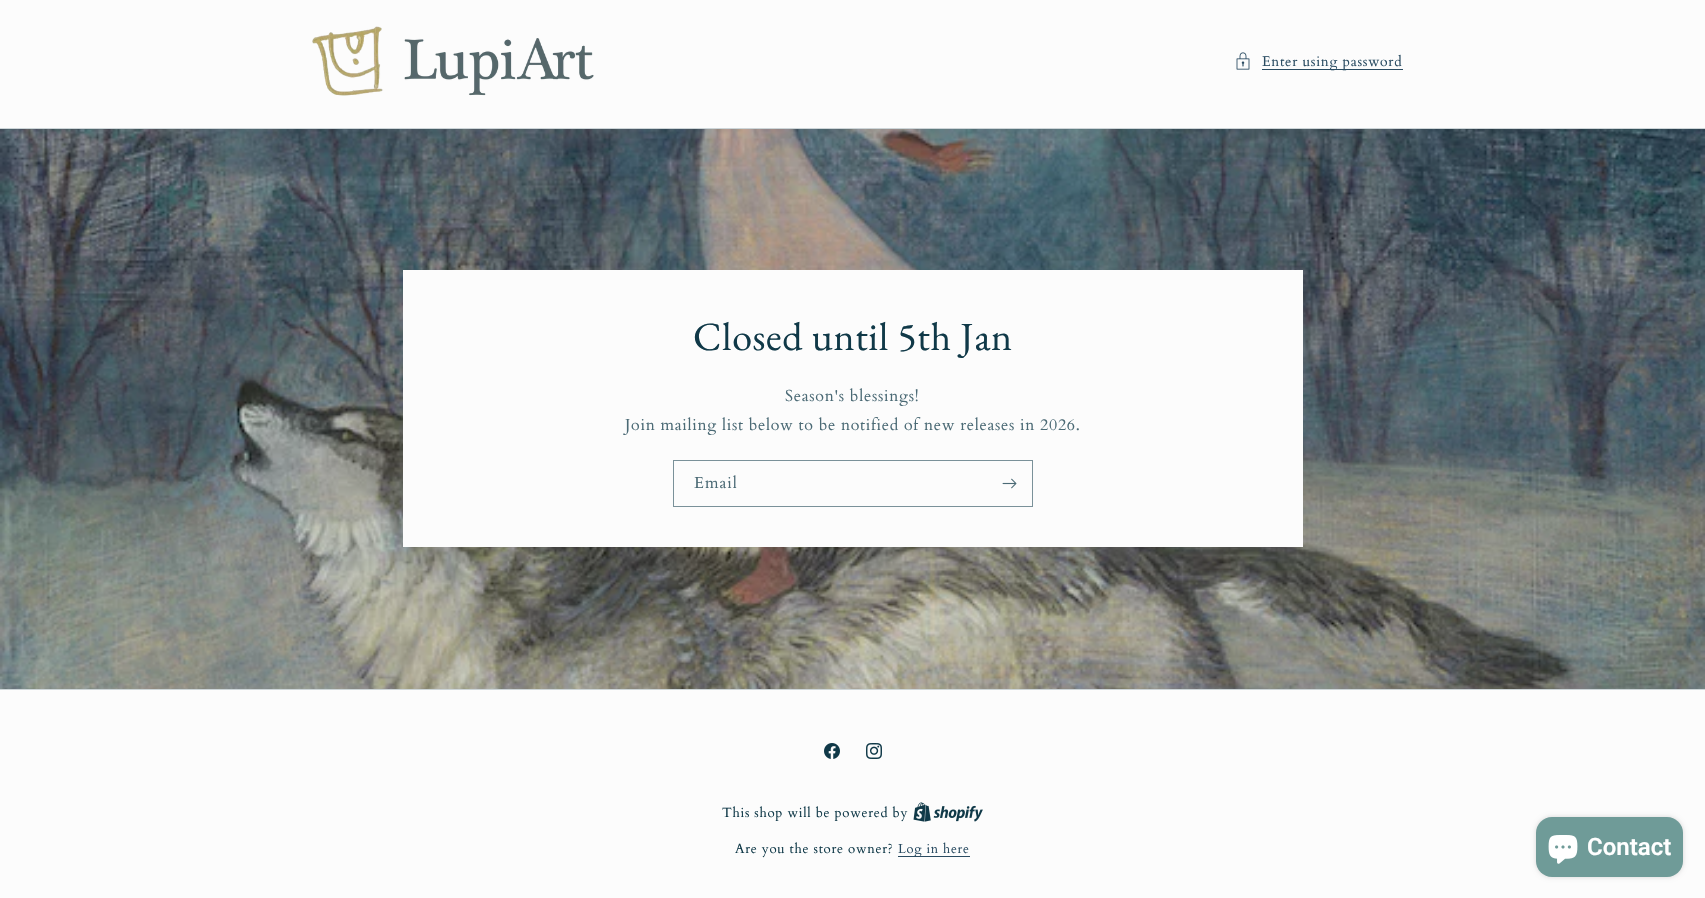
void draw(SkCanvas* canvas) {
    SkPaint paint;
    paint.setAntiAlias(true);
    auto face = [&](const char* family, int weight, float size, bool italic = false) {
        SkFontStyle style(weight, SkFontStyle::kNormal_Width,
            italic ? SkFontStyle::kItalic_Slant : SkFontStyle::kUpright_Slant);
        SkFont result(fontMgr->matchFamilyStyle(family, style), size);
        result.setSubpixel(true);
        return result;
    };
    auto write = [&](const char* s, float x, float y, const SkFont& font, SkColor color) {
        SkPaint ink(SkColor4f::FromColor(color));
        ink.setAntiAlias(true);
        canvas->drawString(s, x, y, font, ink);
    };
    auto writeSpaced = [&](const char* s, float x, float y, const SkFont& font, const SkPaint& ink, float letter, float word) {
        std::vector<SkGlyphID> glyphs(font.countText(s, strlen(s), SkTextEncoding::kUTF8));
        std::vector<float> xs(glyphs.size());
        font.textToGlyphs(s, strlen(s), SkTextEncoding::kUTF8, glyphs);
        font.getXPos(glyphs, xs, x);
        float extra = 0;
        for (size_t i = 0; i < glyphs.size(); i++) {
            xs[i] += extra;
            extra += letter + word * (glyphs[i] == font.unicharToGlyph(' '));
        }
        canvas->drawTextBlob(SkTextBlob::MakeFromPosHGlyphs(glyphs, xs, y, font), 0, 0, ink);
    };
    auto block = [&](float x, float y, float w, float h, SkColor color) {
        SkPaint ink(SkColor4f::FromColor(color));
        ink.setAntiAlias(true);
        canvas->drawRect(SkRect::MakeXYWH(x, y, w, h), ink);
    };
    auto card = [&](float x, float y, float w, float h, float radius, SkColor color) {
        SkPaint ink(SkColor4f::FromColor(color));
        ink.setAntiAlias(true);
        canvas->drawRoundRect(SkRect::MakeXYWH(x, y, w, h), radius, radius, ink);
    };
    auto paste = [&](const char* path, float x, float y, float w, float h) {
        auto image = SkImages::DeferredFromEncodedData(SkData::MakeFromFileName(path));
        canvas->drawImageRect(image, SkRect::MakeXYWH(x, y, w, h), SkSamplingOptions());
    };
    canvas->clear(SkColorSetRGB(252, 252, 252));
    paste("pic1.png", 312, 26, 282, 70);
    paste("pic2.png", 1236, 52, 14, 18);
    block(1262, 69, 141, 1, SkColorSetRGB(42, 75, 97));
    auto kFont1 = face("Cardo", 400, 14);
    paint.setColor(SkColorSetRGB(41, 75, 97));
    writeSpaced("Enter using password", 1262, 66, kFont1, paint, 0.7f, 0);
    block(0, 128, 1705, 1, SkColorSetRGB(205, 213, 216));
    paste("pic3.png", 0, 129, 1705, 560);
    block(403, 270, 900, 277, SkColorSetRGB(252, 252, 252));
    auto kFont2 = face("EB Garamond", 400, 40);
    paint.setColor(SkColorSetRGB(16, 57, 72));
    writeSpaced("Closed until 5th Jan", 693, 350, kFont2, paint, 0.6f, 0);
    auto kFont3 = face("Cardo", 400, 16);
    paint.setColor(SkColorSetRGB(75, 106, 117));
    writeSpaced("Season's blessings!", 785, 401, kFont3, paint, 0.7f, 0);
    writeSpaced("Join mailing list below to be notified of new releases in 2026.", 625, 430, kFont3, paint, 0.7f, 0);
    paint.setStyle(SkPaint::kStroke_Style);
    paint.setStrokeWidth(1);
    paint.setColor(SkColorSetRGB(122, 145, 153));
    canvas->drawRect(SkRect::MakeXYWH(673.5f, 460.5f, 359, 46), paint);
    paint.setStyle(SkPaint::kFill_Style);
    paint.setColor(SkColorSetRGB(75, 106, 117));
    writeSpaced("Email", 694, 488, kFont3, paint, 1, 0);
    paste("pic4.png", 1002, 478, 15, 11);
    block(0, 689, 1705, 1, SkColorSetRGB(205, 213, 216));
    paste("pic5.png", 824, 743, 16, 16);
    paste("pic6.png", 866, 743, 16, 16);
    auto kFont4 = face("Cardo", 400, 13.3f);
    paint.setColor(SkColorSetRGB(16, 57, 72));
    writeSpaced("This shop will be powered by", 722, 817, kFont4, paint, 0.7f, 0);
    paste("pic7.png", 913, 802, 70, 20);
    writeSpaced("Are you the store owner?", 735, 853, kFont4, paint, 0.7f, 0);
    block(898, 856, 72, 1, SkColorSetRGB(42, 75, 97));
    auto kFont5 = face("Cardo", 400, 13);
    paint.setColor(SkColorSetRGB(41, 75, 97));
    writeSpaced("Log in here", 898, 853, kFont5, paint, 0.7f, 0);
    paint.setColor(SkColorSetARGB(38, 0, 0, 0));
    paint.setMaskFilter(SkMaskFilter::MakeBlur(kNormal_SkBlurStyle, 2.5f));
    canvas->drawRoundRect(SkRect::MakeXYWH(1536, 817, 147, 60), 16, 16, paint);
    paint.setMaskFilter(nullptr);
    card(1536, 817, 147, 60, 16, SkColorSetRGB(111, 155, 152));
    paste("pic8.png", 1548, 835, 30, 29);
    auto kFont6 = face("Roboto", 600, 24);
    write("Contact", 1587, 855, kFont6, SK_ColorWHITE);
}
